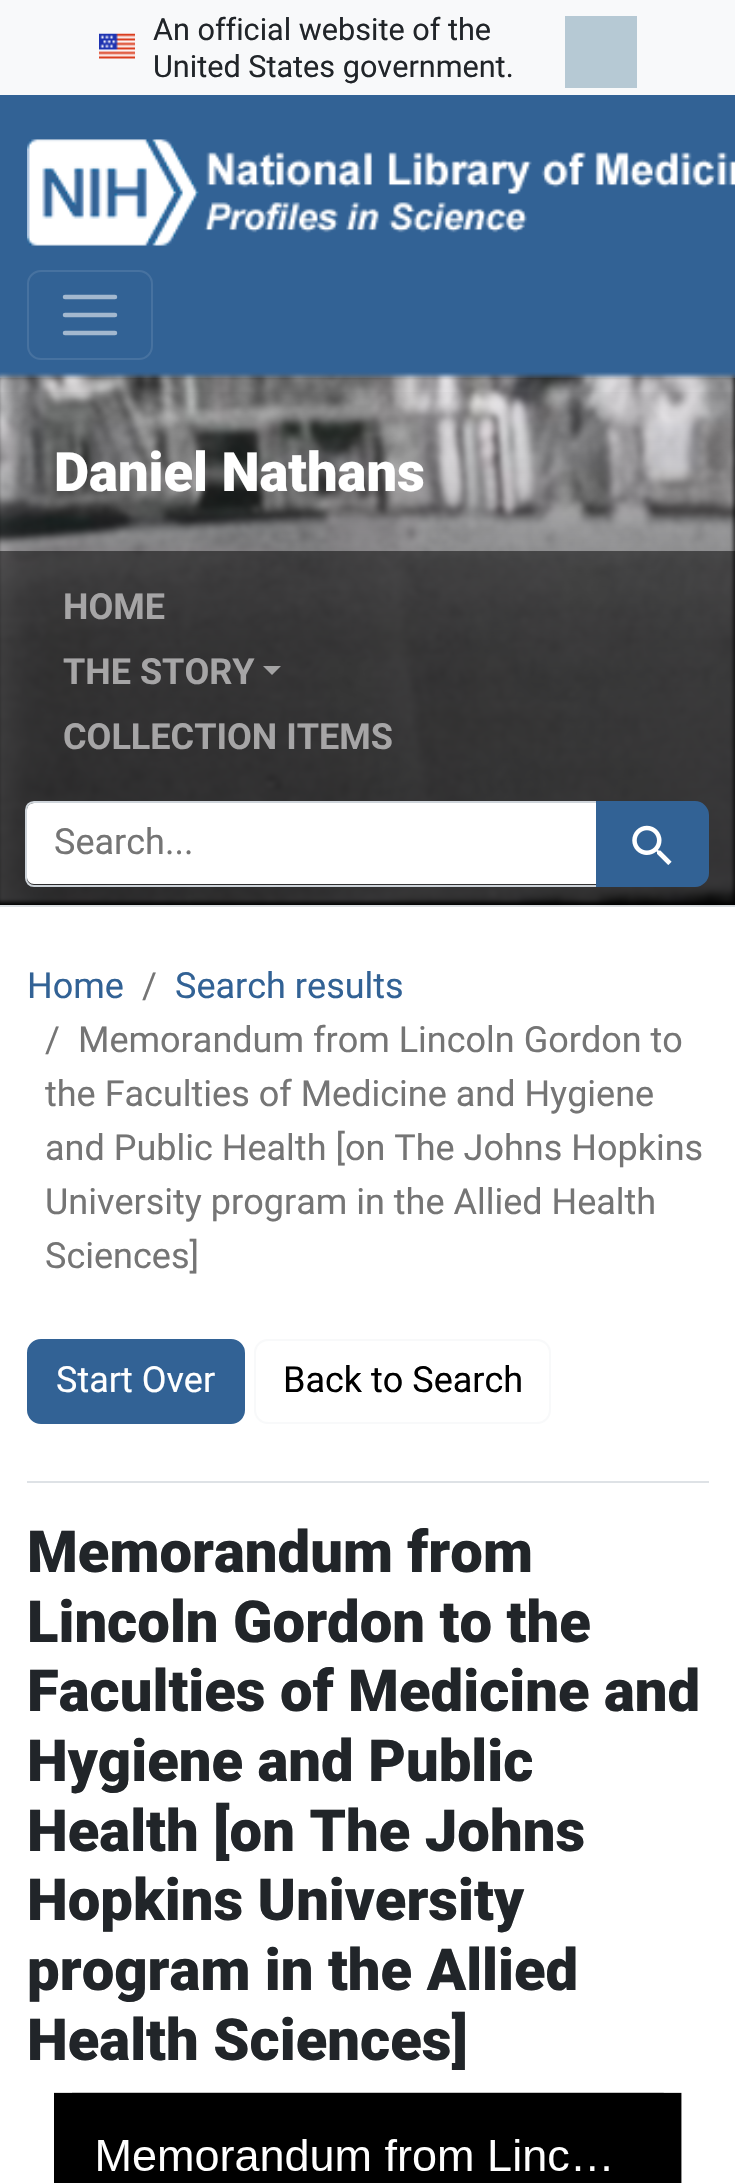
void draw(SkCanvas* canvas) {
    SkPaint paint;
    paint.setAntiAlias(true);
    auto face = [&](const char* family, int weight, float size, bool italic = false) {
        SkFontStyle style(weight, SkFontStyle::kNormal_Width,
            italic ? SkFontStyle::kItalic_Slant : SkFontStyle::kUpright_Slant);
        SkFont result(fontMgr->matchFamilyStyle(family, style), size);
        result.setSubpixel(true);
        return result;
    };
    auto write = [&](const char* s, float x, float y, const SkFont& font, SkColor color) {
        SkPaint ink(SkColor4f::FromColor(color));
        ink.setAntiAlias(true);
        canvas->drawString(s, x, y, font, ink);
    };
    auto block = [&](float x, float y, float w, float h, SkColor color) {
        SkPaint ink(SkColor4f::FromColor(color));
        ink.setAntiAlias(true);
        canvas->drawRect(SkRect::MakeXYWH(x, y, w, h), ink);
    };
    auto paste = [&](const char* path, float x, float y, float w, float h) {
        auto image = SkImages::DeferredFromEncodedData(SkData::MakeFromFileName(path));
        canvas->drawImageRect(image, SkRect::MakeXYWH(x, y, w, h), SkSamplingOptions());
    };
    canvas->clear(SK_ColorWHITE);
    block(0, 0, 735, 95, SkColorSetRGB(248, 249, 250));
    paste("pic1.png", 99, 33, 36, 26);
    auto kFont1 = face("Roboto", 400, 30.6f);
    write("An official website of the", 153, 40, kFont1, SkColorSetRGB(33, 37, 41));
    write("United States government.", 153, 77, kFont1, SkColorSetRGB(33, 37, 41));
    block(565, 16, 72, 72, SkColorSetRGB(182, 201, 212));
    block(0, 95, 735, 283, SkColorSetRGB(50, 98, 149));
    paste("pic2.png", 27, 139, 708, 107);
    paint.setStyle(SkPaint::kStroke_Style);
    paint.setStrokeWidth(2);
    paint.setColor(SkColorSetRGB(71, 114, 160));
    canvas->drawRoundRect(SkRect::MakeXYWH(28, 271, 124, 88), 13, 13, paint);
    paint.setStrokeWidth(4.5f);
    paint.setStrokeCap(SkPaint::kRound_Cap);
    paint.setColor(SkColorSetRGB(163, 184, 207));
    canvas->drawPath(SkPathBuilder().moveTo(65, 297).lineTo(115, 297).moveTo(65, 315).lineTo(115, 315).moveTo(65, 333).lineTo(115, 333).detach(), paint);
    block(0, 378, 735, 527, SK_ColorBLACK);
    block(0, 905, 735, 2, SkColorSetRGB(222, 226, 230));
    paste("pic3.png", 0, 372, 735, 535);
    paint.setStyle(SkPaint::kFill_Style);
    paint.setColor(SK_ColorBLACK);
    paint.setMaskFilter(SkMaskFilter::MakeBlur(kNormal_SkBlurStyle, 2));
    canvas->drawRect(SkRect::MakeXYWH(734, 376, 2, 526), paint);
    paint.setMaskFilter(nullptr);
    {
        const SkColor colors[] = {SkColorSetARGB(0, 0, 0, 0), SkColorSetARGB(102, 0, 0, 0), SkColorSetARGB(128, 0, 0, 0)};
        const float stops[] = {0, 0.5f, 1};
        const SkPoint ends[] = {{368, 378}, {368, 905}};
        paint.setShader(SkGradientShader::MakeLinear(ends, colors, stops, 3, SkTileMode::kClamp));
        paint.setAlpha(255);
    }
    canvas->drawRect(SkRect::MakeXYWH(0, 392, 735, 513), paint);
    auto kFont2 = face("Roboto", 900, 54.25f);
    write("Daniel Nathans", 54, 491, kFont2, SK_ColorWHITE);
    block(0, 551, 735, 354, SkColorSetARGB(128, 0, 0, 0));
    auto kFont3 = face("Roboto", 700, 36);
    write("HOME", 63, 619, kFont3, SkColorSetRGB(166, 165, 166));
    write("THE STORY", 63, 684, kFont3, SkColorSetRGB(166, 165, 166));
    paint.setShader(nullptr);
    paint.setColor(SkColorSetARGB(140, 255, 255, 255));
    canvas->drawPath(SkPathBuilder().moveTo(263, 666).lineTo(281, 666).lineTo(272, 675).close().detach(), paint);
    write("COLLECTION ITEMS", 63, 749, kFont3, SkColorSetRGB(166, 165, 166));
    paint.setColor(SK_ColorWHITE);
    canvas->drawPath(SkPathBuilder().moveTo(34, 803).lineTo(596, 803).lineTo(596, 884).lineTo(34, 884).cubicTo(30, 884, 27, 881, 27, 877).lineTo(27, 810).cubicTo(27, 806, 30, 803, 34, 803).close().detach(), paint);
    paint.setStyle(SkPaint::kStroke_Style);
    paint.setStrokeWidth(2);
    paint.setStrokeCap(SkPaint::kButt_Cap);
    paint.setColor(SkColorSetRGB(206, 212, 218));
    canvas->drawPath(SkPathBuilder().moveTo(34, 802).lineTo(598, 802).lineTo(598, 886).lineTo(34, 886).cubicTo(29.5f, 886, 26, 882.5f, 26, 878).lineTo(26, 810).cubicTo(26, 805.5f, 29.5f, 802, 34, 802).close().detach(), paint);
    auto kFont4 = face("Roboto", 400, 36);
    write("Search...", 54, 854, kFont4, SkColorSetRGB(117, 117, 117));
    paint.setStyle(SkPaint::kFill_Style);
    paint.setColor(SkColorSetRGB(50, 98, 149));
    canvas->drawPath(SkPathBuilder().moveTo(597, 802).lineTo(695, 802).cubicTo(702, 802, 708, 808, 708, 815).lineTo(708, 873).cubicTo(708, 880, 702, 886, 695, 886).lineTo(597, 886).close().detach(), paint);
    paint.setStyle(SkPaint::kStroke_Style);
    canvas->drawPath(SkPathBuilder().moveTo(597, 802).lineTo(695, 802).cubicTo(702, 802, 708, 808, 708, 815).lineTo(708, 873).cubicTo(708, 880, 702, 886, 695, 886).lineTo(597, 886).close().detach(), paint);
    paste("pic4.png", 632, 825, 40, 40);
    write("Home", 27, 998, kFont4, SkColorSetRGB(50, 98, 149));
    write("/", 142, 998, kFont4, SkColorSetRGB(117, 117, 117));
    write("Search results", 175, 998, kFont4, SkColorSetRGB(50, 98, 149));
    write("/", 45, 1052, kFont4, SkColorSetRGB(117, 117, 117));
    write("Memorandum from Lincoln Gordon to", 78, 1052, kFont4, SkColorSetRGB(117, 117, 117));
    write("the Faculties of Medicine and Hygiene", 45, 1106, kFont4, SkColorSetRGB(117, 117, 117));
    write("and Public Health [on The Johns Hopkins", 45, 1160, kFont4, SkColorSetRGB(117, 117, 117));
    write("University program in the Allied Health", 45, 1214, kFont4, SkColorSetRGB(117, 117, 117));
    write("Sciences]", 45, 1268, kFont4, SkColorSetRGB(117, 117, 117));
    paint.setStyle(SkPaint::kFill_Style);
    canvas->drawRoundRect(SkRect::MakeXYWH(28, 1340, 216, 83), 13, 13, paint);
    paint.setStyle(SkPaint::kStroke_Style);
    canvas->drawRoundRect(SkRect::MakeXYWH(28, 1340, 216, 83), 13, 13, paint);
    write("Start Over", 56, 1392, kFont4, SK_ColorWHITE);
    paint.setColor(SkColorSetRGB(248, 249, 250));
    canvas->drawRoundRect(SkRect::MakeXYWH(255, 1340, 295, 83), 13, 13, paint);
    write("Back to Search", 283, 1392, kFont4, SK_ColorBLACK);
    block(27, 1481, 682, 2, SkColorSetRGB(222, 226, 230));
    auto kFont5 = face("Roboto", 900, 58);
    write("Memorandum from", 27, 1572, kFont5, SkColorSetRGB(33, 37, 41));
    write("Lincoln Gordon to the", 27, 1642, kFont5, SkColorSetRGB(33, 37, 41));
    write("Faculties of Medicine and", 27, 1711, kFont5, SkColorSetRGB(33, 37, 41));
    write("Hygiene and Public", 27, 1781, kFont5, SkColorSetRGB(33, 37, 41));
    write("Health [on The Johns", 27, 1851, kFont5, SkColorSetRGB(33, 37, 41));
    write("Hopkins University", 27, 1920, kFont5, SkColorSetRGB(33, 37, 41));
    write("program in the Allied", 27, 1990, kFont5, SkColorSetRGB(33, 37, 41));
    write("Health Sciences]", 27, 2060, kFont5, SkColorSetRGB(33, 37, 41));
    paste("pic5.png", 54, 2092, 628, 91);
}
